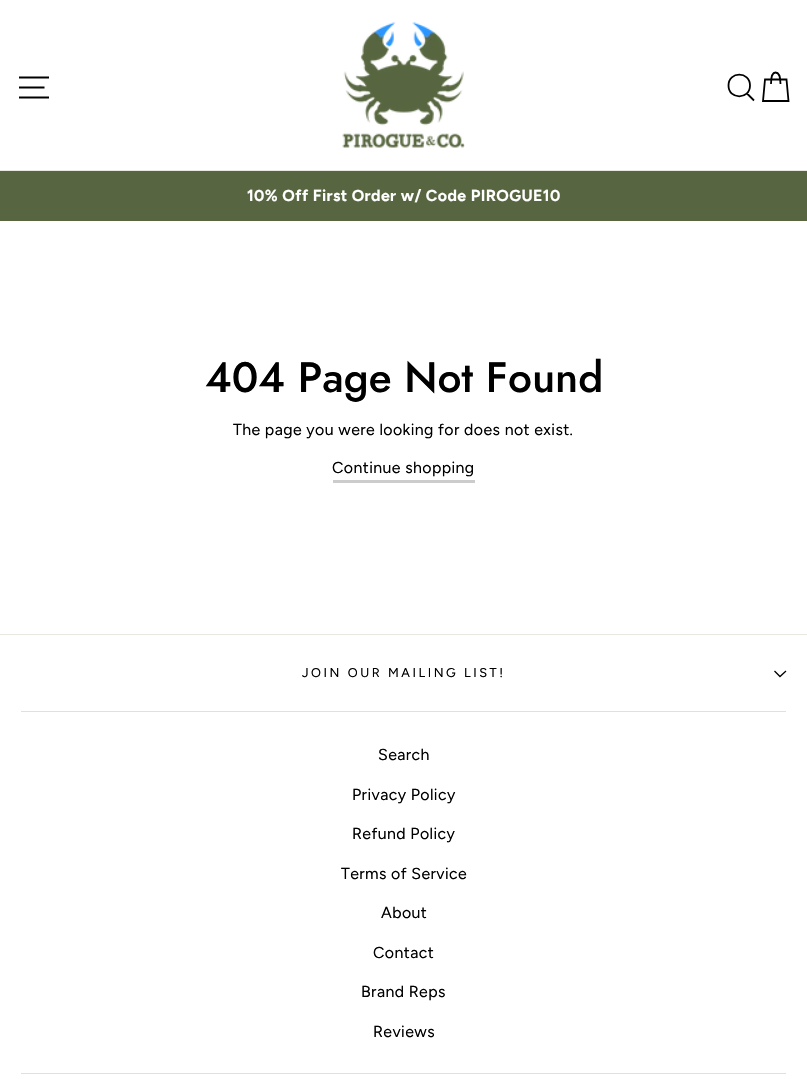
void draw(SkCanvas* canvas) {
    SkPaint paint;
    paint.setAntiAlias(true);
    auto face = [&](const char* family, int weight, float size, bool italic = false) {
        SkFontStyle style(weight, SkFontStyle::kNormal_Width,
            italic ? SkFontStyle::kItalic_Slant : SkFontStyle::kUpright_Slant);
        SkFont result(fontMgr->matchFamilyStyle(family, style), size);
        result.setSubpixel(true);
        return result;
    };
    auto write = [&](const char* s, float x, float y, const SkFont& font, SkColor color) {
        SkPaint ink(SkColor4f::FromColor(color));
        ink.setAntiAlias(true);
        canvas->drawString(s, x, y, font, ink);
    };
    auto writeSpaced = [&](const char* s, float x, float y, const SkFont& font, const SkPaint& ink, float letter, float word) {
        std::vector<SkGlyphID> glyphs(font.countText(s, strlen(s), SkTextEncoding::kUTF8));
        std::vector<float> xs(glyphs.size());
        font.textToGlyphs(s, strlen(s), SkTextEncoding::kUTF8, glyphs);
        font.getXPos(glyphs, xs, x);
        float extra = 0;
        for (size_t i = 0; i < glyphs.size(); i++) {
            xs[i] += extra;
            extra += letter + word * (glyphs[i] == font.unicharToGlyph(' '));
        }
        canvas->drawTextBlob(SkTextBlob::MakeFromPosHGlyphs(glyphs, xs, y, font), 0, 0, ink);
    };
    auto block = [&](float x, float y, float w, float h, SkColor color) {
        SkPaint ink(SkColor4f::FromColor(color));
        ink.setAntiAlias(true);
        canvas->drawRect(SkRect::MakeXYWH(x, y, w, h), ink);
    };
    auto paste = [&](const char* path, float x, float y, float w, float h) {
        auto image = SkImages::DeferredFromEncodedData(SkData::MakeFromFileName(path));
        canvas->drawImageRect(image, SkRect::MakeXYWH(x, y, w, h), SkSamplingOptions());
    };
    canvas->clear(SK_ColorWHITE);
    block(0, 170, 807, 1, SkColorSetRGB(232, 232, 225));
    paint.setStyle(SkPaint::kStroke_Style);
    paint.setStrokeWidth(1.8f);
    paint.setColor(SK_ColorBLACK);
    canvas->drawPath(SkPathBuilder().moveTo(19, 77.5f).lineTo(49, 77.5f).moveTo(19, 87.5f).lineTo(44.5f, 87.5f).moveTo(19, 97.5f).lineTo(49, 97.5f).detach(), paint);
    paste("pic1.png", 342, 22, 123, 126);
    canvas->drawPath(SkPathBuilder().moveTo(750, 85.5f).cubicTo(750, 100, 728.5f, 100, 728.5f, 85.5f).cubicTo(728.5f, 71, 750, 71, 750, 85.5f).close().moveTo(754, 100.5f).lineTo(747, 93.5f).moveTo(771, 84).cubicTo(771, 74.5f, 773, 72.5f, 775.5f, 72.5f).cubicTo(778, 72.5f, 780.5f, 74.5f, 780.5f, 84).moveTo(765, 79.5f).lineTo(786.5f, 79.5f).lineTo(788.5f, 101).lineTo(763, 101).close().detach(), paint);
    block(0, 171, 807, 50, SkColorSetRGB(87, 102, 64));
    auto kFont1 = face("Figtree", 700, 15.9f);
    paint.setStyle(SkPaint::kFill_Style);
    paint.setColor(SK_ColorWHITE);
    writeSpaced("10% Off First Order w/ Code PIROGUE10", 247, 201, kFont1, paint, 0.4f, 0);
    auto kFont2 = face("Jost", 500, 42.5f);
    write("404 Page Not Found", 205, 392, kFont2, SK_ColorBLACK);
    auto kFont3 = face("Figtree", 400, 15.9f);
    paint.setColor(SK_ColorBLACK);
    writeSpaced("The page you were looking for does not exist.", 233, 435, kFont3, paint, 0.4f, 0);
    block(333, 480, 142, 3, SkColorSetRGB(204, 204, 204));
    writeSpaced("Continue shopping", 332, 473, kFont3, paint, 0.4f, 0);
    block(0, 634, 807, 1, SkColorSetRGB(232, 232, 225));
    auto kFont4 = face("Figtree", 400, 12.75f);
    writeSpaced("JOIN OUR MAILING LIST!", 302, 677, kFont4, paint, 2.55f, 0);
    paint.setStyle(SkPaint::kStroke_Style);
    paint.setStrokeWidth(1.3f);
    canvas->drawPath(SkPathBuilder().moveTo(774.5f, 671).lineTo(780, 676.5f).lineTo(786, 671).detach(), paint);
    block(21, 711, 765, 1, SkColorSetRGB(224, 224, 224));
    paint.setStyle(SkPaint::kFill_Style);
    writeSpaced("Search", 378, 760, kFont3, paint, 0.4f, 0);
    writeSpaced("Privacy Policy", 352, 800, kFont3, paint, 0.4f, 0);
    writeSpaced("Refund Policy", 352, 839, kFont3, paint, 0.4f, 0);
    writeSpaced("Terms of Service", 341, 879, kFont3, paint, 0.4f, 0);
    writeSpaced("About", 381, 918, kFont3, paint, 0.4f, 0);
    writeSpaced("Contact", 373, 958, kFont3, paint, 0.4f, 0);
    writeSpaced("Brand Reps", 361, 997, kFont3, paint, 0.4f, 0);
    writeSpaced("Reviews", 373, 1037, kFont3, paint, 0.4f, 0);
    block(21, 1073, 765, 1, SkColorSetRGB(224, 224, 224));
}
